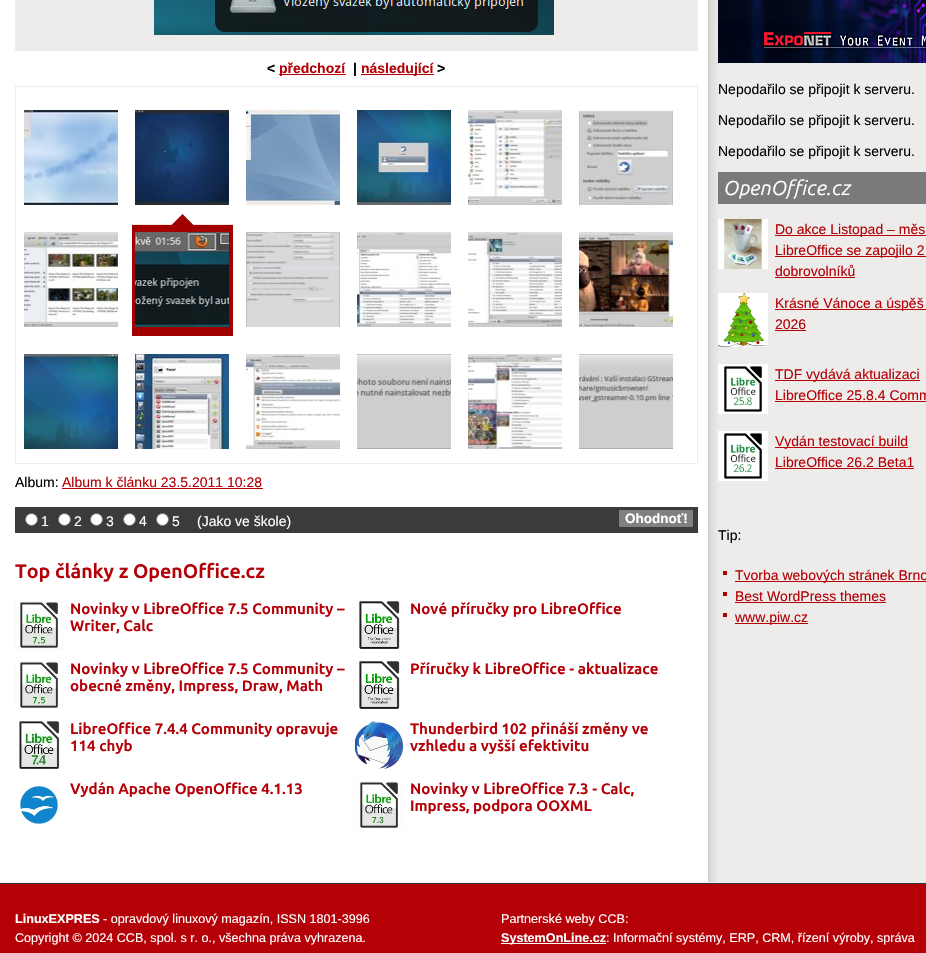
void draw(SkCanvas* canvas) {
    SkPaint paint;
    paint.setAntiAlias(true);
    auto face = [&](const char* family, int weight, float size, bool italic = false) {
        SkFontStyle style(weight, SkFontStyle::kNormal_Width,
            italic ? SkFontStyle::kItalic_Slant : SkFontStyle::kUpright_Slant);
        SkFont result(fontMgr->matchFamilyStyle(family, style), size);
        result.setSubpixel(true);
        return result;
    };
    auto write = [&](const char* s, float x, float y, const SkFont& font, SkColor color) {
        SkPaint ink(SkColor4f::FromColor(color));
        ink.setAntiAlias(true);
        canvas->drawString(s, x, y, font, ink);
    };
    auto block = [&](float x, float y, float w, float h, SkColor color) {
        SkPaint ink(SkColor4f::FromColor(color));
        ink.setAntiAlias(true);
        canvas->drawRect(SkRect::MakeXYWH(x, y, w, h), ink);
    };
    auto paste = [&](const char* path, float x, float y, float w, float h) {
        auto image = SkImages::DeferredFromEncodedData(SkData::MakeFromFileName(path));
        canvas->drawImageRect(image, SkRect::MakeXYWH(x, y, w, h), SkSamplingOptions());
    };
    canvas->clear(SkColorSetRGB(52, 52, 52));
    block(0, 882, 926, 1, SkColorSetRGB(237, 236, 234));
    block(0, 0, 708, 882, SK_ColorWHITE);
    paste("pic1.png", 708, 0, 218, 882);
    block(15, 0, 683, 51, SkColorSetRGB(237, 236, 234));
    paste("pic2.png", 154, 0, 400, 35);
    auto kFont1 = face("Liberation Sans", 700, 14);
    write("<", 267, 73, kFont1, SK_ColorBLACK);
    block(279, 74, 67, 1, SkColorSetRGB(180, 0, 6));
    write("předchozí", 279, 73, kFont1, SkColorSetRGB(180, 0, 6));
    write("|", 353, 73, kFont1, SK_ColorBLACK);
    block(361, 74, 73, 1, SkColorSetRGB(180, 0, 6));
    write("následující", 361, 73, kFont1, SkColorSetRGB(180, 0, 6));
    write(">", 437, 73, kFont1, SK_ColorBLACK);
    paint.setStyle(SkPaint::kStroke_Style);
    paint.setStrokeWidth(1);
    paint.setColor(SkColorSetRGB(237, 236, 234));
    canvas->drawRect(SkRect::MakeXYWH(15.5f, 86.5f, 682, 377), paint);
    paste("pic3.png", 24, 110, 94, 95);
    paste("pic4.png", 135, 110, 94, 95);
    paste("pic5.png", 246, 110, 94, 95);
    paste("pic6.png", 357, 110, 94, 95);
    paste("pic7.png", 468, 110, 94, 95);
    paste("pic8.png", 579, 110, 94, 95);
    paste("pic9.png", 24, 232, 94, 95);
    paste("pic10.png", 132, 214, 101, 122);
    paste("pic11.png", 135, 232, 94, 95);
    paste("pic12.png", 246, 232, 94, 95);
    paste("pic13.png", 357, 232, 94, 95);
    paste("pic14.png", 468, 232, 94, 95);
    paste("pic15.png", 579, 232, 94, 95);
    paste("pic16.png", 24, 354, 94, 95);
    paste("pic17.png", 135, 354, 94, 95);
    paste("pic18.png", 246, 354, 94, 95);
    paste("pic19.png", 357, 354, 94, 95);
    paste("pic20.png", 468, 354, 94, 95);
    paste("pic21.png", 579, 354, 94, 95);
    auto kFont2 = face("Liberation Sans", 400, 14);
    write("Album:", 15, 487, kFont2, SK_ColorBLACK);
    write("Album k článku 23.5.2011 10:28", 62, 487, kFont2, SkColorSetRGB(180, 0, 6));
    block(62, 488, 201, 1, SkColorSetRGB(180, 0, 6));
    block(15, 507, 683, 26, SkColorSetRGB(59, 59, 59));
    paint.setStyle(SkPaint::kFill_Style);
    paint.setColor(SK_ColorWHITE);
    canvas->drawCircle(31.5f, 519.5f, 6, paint);
    paint.setStyle(SkPaint::kStroke_Style);
    paint.setColor(SkColorSetRGB(118, 118, 118));
    canvas->drawCircle(31.5f, 519.5f, 6, paint);
    write("1", 41, 526, kFont2, SK_ColorWHITE);
    paint.setStyle(SkPaint::kFill_Style);
    paint.setColor(SK_ColorWHITE);
    canvas->drawCircle(64.5f, 519.5f, 6, paint);
    paint.setStyle(SkPaint::kStroke_Style);
    paint.setColor(SkColorSetRGB(118, 118, 118));
    canvas->drawCircle(64.5f, 519.5f, 6, paint);
    write("2", 74, 526, kFont2, SK_ColorWHITE);
    paint.setStyle(SkPaint::kFill_Style);
    paint.setColor(SK_ColorWHITE);
    canvas->drawCircle(96.5f, 519.5f, 6, paint);
    paint.setStyle(SkPaint::kStroke_Style);
    paint.setColor(SkColorSetRGB(118, 118, 118));
    canvas->drawCircle(96.5f, 519.5f, 6, paint);
    write("3", 106, 526, kFont2, SK_ColorWHITE);
    paint.setStyle(SkPaint::kFill_Style);
    paint.setColor(SK_ColorWHITE);
    canvas->drawCircle(129.5f, 519.5f, 6, paint);
    paint.setStyle(SkPaint::kStroke_Style);
    paint.setColor(SkColorSetRGB(118, 118, 118));
    canvas->drawCircle(129.5f, 519.5f, 6, paint);
    write("4", 139, 526, kFont2, SK_ColorWHITE);
    paint.setStyle(SkPaint::kFill_Style);
    paint.setColor(SK_ColorWHITE);
    canvas->drawCircle(162.5f, 519.5f, 6, paint);
    paint.setStyle(SkPaint::kStroke_Style);
    paint.setColor(SkColorSetRGB(118, 118, 118));
    canvas->drawCircle(162.5f, 519.5f, 6, paint);
    write("5", 172, 526, kFont2, SK_ColorWHITE);
    write("(Jako ve škole)", 197, 526, kFont2, SK_ColorWHITE);
    block(619, 510, 74, 17, SkColorSetRGB(128, 128, 128));
    auto kFont3 = face("Liberation Sans", 700, 13.5f);
    write("Ohodnoť!", 625, 523, kFont3, SK_ColorWHITE);
    auto kFont4 = face("Ubuntu", 700, 19.6f);
    write("Top články z OpenOffice.cz", 15, 578, kFont4, SkColorSetRGB(180, 0, 6));
    paste("pic22.png", 15, 601, 48, 48);
    auto kFont5 = face("Ubuntu", 700, 15.1f);
    write("Novinky v LibreOffice 7.5 Community –", 70, 614, kFont5, SkColorSetRGB(180, 0, 6));
    write("Writer, Calc", 70, 631, kFont5, SkColorSetRGB(180, 0, 6));
    paste("pic23.png", 359, 601, 41, 48);
    write("Nové příručky pro LibreOffice", 410, 614, kFont5, SkColorSetRGB(180, 0, 6));
    paste("pic22.png", 15, 661, 48, 48);
    write("Novinky v LibreOffice 7.5 Community –", 70, 674, kFont5, SkColorSetRGB(180, 0, 6));
    write("obecné změny, Impress, Draw, Math", 70, 691, kFont5, SkColorSetRGB(180, 0, 6));
    paste("pic23.png", 359, 661, 41, 48);
    write("Příručky k LibreOffice - aktualizace", 410, 674, kFont5, SkColorSetRGB(180, 0, 6));
    paste("pic24.png", 19, 721, 41, 48);
    write("LibreOffice 7.4.4 Community opravuje", 70, 734, kFont5, SkColorSetRGB(180, 0, 6));
    write("114 chyb", 70, 751, kFont5, SkColorSetRGB(180, 0, 6));
    paste("pic25.png", 355, 721, 48, 48);
    write("Thunderbird 102 přináší změny ve", 410, 734, kFont5, SkColorSetRGB(180, 0, 6));
    write("vzhledu a vyšší efektivitu", 410, 751, kFont5, SkColorSetRGB(180, 0, 6));
    paste("pic26.png", 15, 781, 46, 46);
    write("Vydán Apache OpenOffice 4.1.13", 70, 794, kFont5, SkColorSetRGB(180, 0, 6));
    paste("pic27.png", 355, 781, 48, 48);
    write("Novinky v LibreOffice 7.3 - Calc,", 410, 794, kFont5, SkColorSetRGB(180, 0, 6));
    write("Impress, podpora OOXML", 410, 811, kFont5, SkColorSetRGB(180, 0, 6));
    paste("pic28.png", 718, 0, 208, 63);
    write("Nepodařilo se připojit k serveru.", 718, 94, kFont2, SK_ColorBLACK);
    write("Nepodařilo se připojit k serveru.", 718, 125, kFont2, SK_ColorBLACK);
    write("Nepodařilo se připojit k serveru.", 718, 156, kFont2, SK_ColorBLACK);
    block(718, 172, 208, 32, SkColorSetRGB(122, 122, 122));
    auto kFont6 = face("Ubuntu", 400, 20.25f, true);
    write("OpenOffice.cz", 724, 195, kFont6, SK_ColorWHITE);
    paste("pic29.png", 718, 219, 50, 50);
    block(775, 235, 151, 1, SkColorSetRGB(180, 0, 6));
    write("Do akce Listopad – měs", 775, 234, kFont2, SkColorSetRGB(180, 0, 6));
    block(775, 256, 151, 1, SkColorSetRGB(180, 0, 6));
    write("LibreOffice se zapojilo 2", 775, 255, kFont2, SkColorSetRGB(180, 0, 6));
    write("dobrovolníků", 775, 276, kFont2, SkColorSetRGB(180, 0, 6));
    block(775, 277, 80, 1, SkColorSetRGB(180, 0, 6));
    paste("pic30.png", 718, 293, 50, 54);
    block(775, 309, 151, 1, SkColorSetRGB(180, 0, 6));
    write("Krásné Vánoce a úspěš", 775, 308, kFont2, SkColorSetRGB(180, 0, 6));
    write("2026", 775, 329, kFont2, SkColorSetRGB(180, 0, 6));
    block(775, 330, 31, 1, SkColorSetRGB(180, 0, 6));
    paste("pic31.png", 718, 364, 50, 50);
    block(775, 380, 145, 1, SkColorSetRGB(180, 0, 6));
    write("TDF vydává aktualizaci", 775, 379, kFont2, SkColorSetRGB(180, 0, 6));
    write("LibreOffice 25.8.4 Comm", 775, 400, kFont2, SkColorSetRGB(180, 0, 6));
    block(775, 401, 151, 1, SkColorSetRGB(180, 0, 6));
    paste("pic32.png", 718, 431, 50, 50);
    block(775, 447, 133, 1, SkColorSetRGB(180, 0, 6));
    write("Vydán testovací build", 775, 446, kFont2, SkColorSetRGB(180, 0, 6));
    write("LibreOffice 26.2 Beta1", 775, 467, kFont2, SkColorSetRGB(180, 0, 6));
    block(775, 468, 139, 1, SkColorSetRGB(180, 0, 6));
    write("Tip:", 718, 540, kFont2, SK_ColorBLACK);
    block(723, 571, 4, 4, SkColorSetRGB(170, 0, 0));
    block(735, 581, 191, 1, SkColorSetRGB(180, 0, 6));
    write("Tvorba webových stránek Brno", 735, 580, kFont2, SkColorSetRGB(180, 0, 6));
    block(723, 592, 4, 4, SkColorSetRGB(170, 0, 0));
    write("Best WordPress themes", 735, 601, kFont2, SkColorSetRGB(180, 0, 6));
    block(735, 602, 151, 1, SkColorSetRGB(180, 0, 6));
    block(723, 613, 4, 4, SkColorSetRGB(170, 0, 0));
    block(735, 623, 73, 1, SkColorSetRGB(180, 0, 6));
    write("www.piw.cz", 735, 622, kFont2, SkColorSetRGB(180, 0, 6));
    block(0, 884, 926, 69, SkColorSetRGB(180, 0, 6));
    auto kFont7 = face("Liberation Sans", 700, 12.6f);
    write("LinuxEXPRES", 15, 923, kFont7, SK_ColorWHITE);
    auto kFont8 = face("Liberation Sans", 400, 12.6f);
    write("- opravdový linuxový magazín, ISSN 1801-3996", 103, 923, kFont8, SK_ColorWHITE);
    write("Copyright © 2024 CCB, spol. s r. o., všechna práva vyhrazena.", 15, 942, kFont8, SK_ColorWHITE);
    write("Partnerské weby CCB:", 501, 923, kFont8, SK_ColorWHITE);
    block(501, 943, 105, 1, SK_ColorWHITE);
    write("SystemOnLine.cz", 501, 942, kFont7, SK_ColorWHITE);
    write(": Informační systémy, ERP, CRM, řízení výroby, správa", 606, 942, kFont8, SK_ColorWHITE);
}
